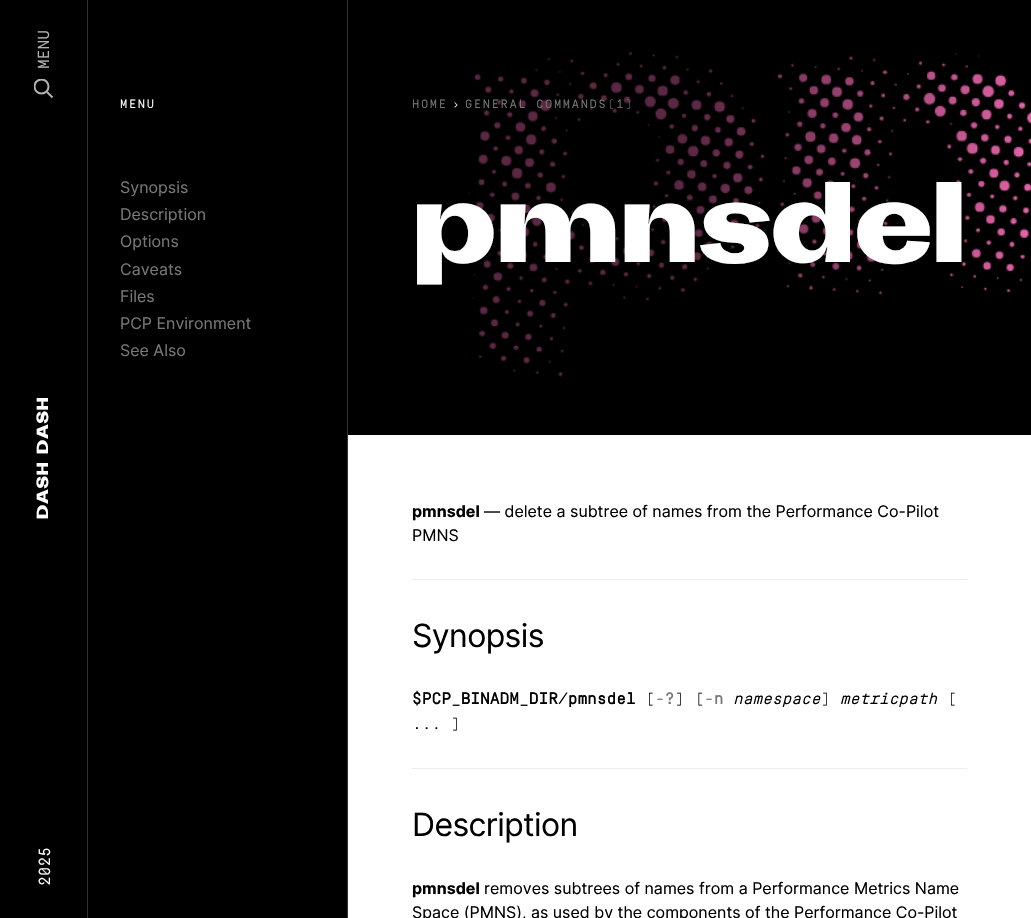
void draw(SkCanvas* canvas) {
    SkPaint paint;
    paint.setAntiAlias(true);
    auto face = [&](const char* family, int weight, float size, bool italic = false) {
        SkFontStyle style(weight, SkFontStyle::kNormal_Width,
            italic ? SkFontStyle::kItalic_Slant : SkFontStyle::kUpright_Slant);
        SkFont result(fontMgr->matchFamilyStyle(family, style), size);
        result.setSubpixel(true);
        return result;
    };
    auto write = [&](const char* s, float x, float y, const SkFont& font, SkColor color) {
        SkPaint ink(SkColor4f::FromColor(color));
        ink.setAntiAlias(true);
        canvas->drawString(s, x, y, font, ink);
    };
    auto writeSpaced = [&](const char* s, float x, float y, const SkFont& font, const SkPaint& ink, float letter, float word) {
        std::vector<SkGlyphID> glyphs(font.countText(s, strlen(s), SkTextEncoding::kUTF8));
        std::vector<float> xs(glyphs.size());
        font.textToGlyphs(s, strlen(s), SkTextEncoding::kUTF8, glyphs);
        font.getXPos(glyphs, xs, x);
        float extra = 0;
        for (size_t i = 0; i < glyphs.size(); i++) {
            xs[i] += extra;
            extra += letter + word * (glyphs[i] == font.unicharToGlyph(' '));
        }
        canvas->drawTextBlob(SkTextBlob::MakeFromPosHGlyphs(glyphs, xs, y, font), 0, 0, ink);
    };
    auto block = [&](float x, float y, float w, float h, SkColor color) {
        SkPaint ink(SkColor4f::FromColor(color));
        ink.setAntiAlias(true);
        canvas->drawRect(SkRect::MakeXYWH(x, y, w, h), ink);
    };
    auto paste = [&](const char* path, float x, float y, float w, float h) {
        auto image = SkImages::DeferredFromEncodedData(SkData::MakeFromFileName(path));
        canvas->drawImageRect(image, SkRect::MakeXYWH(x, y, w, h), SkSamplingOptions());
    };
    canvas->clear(SK_ColorBLACK);
    block(87, 0, 1, 918, SkColorSetRGB(51, 51, 51));
    auto kFont1 = face("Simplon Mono", 400, 16);
    canvas->save();
    canvas->rotate(-90, 49, 69);
    write("MENU", 49, 69, kFont1, SkColorSetRGB(179, 179, 179));
    canvas->restore();
    canvas->save();
    canvas->clipRect(SkRect::MakeXYWH(34, 79, 20, 20));
    paint.setStyle(SkPaint::kStroke_Style);
    paint.setStrokeWidth(2);
    paint.setColor(SkColorSetRGB(179, 179, 179));
    canvas->drawCircle(41.5f, 86.5f, 7, paint);
    canvas->restore();
    canvas->drawPath(SkPathBuilder().moveTo(47, 92).lineTo(52.5f, 97.5f).detach(), paint);
    auto kFont2 = face("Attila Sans", 900, 16);
    paint.setStyle(SkPaint::kFill_Style);
    paint.setColor(SK_ColorWHITE);
    canvas->save();
    canvas->rotate(-90, 48, 454);
    writeSpaced("DASH", 48, 454, kFont2, paint, 1, 0);
    canvas->restore();
    canvas->save();
    canvas->rotate(-90, 48, 519);
    writeSpaced("DASH", 48, 519, kFont2, paint, 1, 0);
    canvas->restore();
    canvas->save();
    canvas->rotate(-90, 50, 886);
    write("2025", 50, 886, kFont1, SK_ColorWHITE);
    canvas->restore();
    block(347, 0, 1, 918, SkColorSetRGB(51, 51, 51));
    auto kFont3 = face("Simplon Mono", 400, 12);
    writeSpaced("MENU", 120, 108, kFont3, paint, 1.6f, 0);
    auto kFont4 = face("Inter", 400, 16);
    write("Synopsis", 120, 193, kFont4, SkColorSetRGB(119, 119, 119));
    write("Description", 120, 220, kFont4, SkColorSetRGB(119, 119, 119));
    write("Options", 120, 247, kFont4, SkColorSetRGB(119, 119, 119));
    write("Caveats", 120, 275, kFont4, SkColorSetRGB(119, 119, 119));
    write("Files", 120, 302, kFont4, SkColorSetRGB(119, 119, 119));
    write("PCP Environment", 120, 329, kFont4, SkColorSetRGB(119, 119, 119));
    write("See Also", 120, 356, kFont4, SkColorSetRGB(119, 119, 119));
    paste("pic1.png", 464, 51, 567, 326);
    {
        const SkColor colors[] = {SkColorSetARGB(153, 0, 0, 0), SkColorSetARGB(153, 0, 0, 0), SkColorSetARGB(0, 0, 0, 0)};
        const float stops[] = {0, 0.5f, 1};
        const SkPoint ends[] = {{348, 218}, {1031, 217}};
        paint.setShader(SkGradientShader::MakeLinear(ends, colors, stops, 3, SkTileMode::kClamp));
        paint.setAlpha(255);
    }
    canvas->drawRect(SkRect::MakeXYWH(464, 51, 555, 326), paint);
    paint.setShader(nullptr);
    paint.setColor(SkColorSetRGB(119, 119, 119));
    writeSpaced("HOME", 412, 108, kFont3, paint, 1.6f, 0);
    paint.setColor(SK_ColorWHITE);
    writeSpaced("›", 452, 108, kFont3, paint, 1.6f, 0);
    paint.setColor(SkColorSetRGB(119, 119, 119));
    writeSpaced("GENERAL COMMANDS(1)", 465, 108, kFont3, paint, 1.6f, 0);
    auto kFont5 = face("Attila Sans", 900, 112.5f);
    write("pmnsdel", 412, 262, kFont5, SK_ColorWHITE);
    block(348, 435, 683, 483, SK_ColorWHITE);
    auto kFont6 = face("Inter", 700, 16);
    write("pmnsdel", 412, 517, kFont6, SK_ColorBLACK);
    write("— delete a subtree of names from the Performance Co-Pilot", 484, 517, kFont4, SK_ColorBLACK);
    write("PMNS", 412, 541, kFont4, SK_ColorBLACK);
    block(412, 579, 555, 1, SkColorSetRGB(238, 238, 238));
    auto kFont7 = face("Inter", 400, 32);
    paint.setColor(SK_ColorBLACK);
    writeSpaced("Synopsis", 412, 647, kFont7, paint, -0.6f, 0);
    auto kFont8 = face("Simplon Mono", 700, 16);
    write("$PCP_BINADM_DIR/pmnsdel", 412, 704, kFont8, SK_ColorBLACK);
    write("[", 645, 704, kFont1, SK_ColorBLACK);
    write("-?", 655, 704, kFont8, SkColorSetRGB(119, 119, 119));
    write("] [", 675, 704, kFont1, SK_ColorBLACK);
    write("-n", 704, 704, kFont8, SkColorSetRGB(119, 119, 119));
    auto kFont9 = face("Simplon Mono", 400, 16, true);
    write("namespace", 733, 704, kFont9, SK_ColorBLACK);
    write("]", 821, 704, kFont1, SK_ColorBLACK);
    write("metricpath", 840, 704, kFont9, SK_ColorBLACK);
    write("[", 947, 704, kFont1, SK_ColorBLACK);
    write("... ]", 412, 729, kFont1, SK_ColorBLACK);
    block(412, 768, 555, 1, SkColorSetRGB(238, 238, 238));
    writeSpaced("Description", 412, 836, kFont7, paint, -0.6f, 0);
    write("pmnsdel", 412, 894, kFont6, SK_ColorBLACK);
    write("removes subtrees of names from a Performance Metrics Name", 484, 894, kFont4, SK_ColorBLACK);
    write("Space (PMNS), as used by the components of the Performance Co-Pilot", 412, 918, kFont4, SK_ColorBLACK);
}
